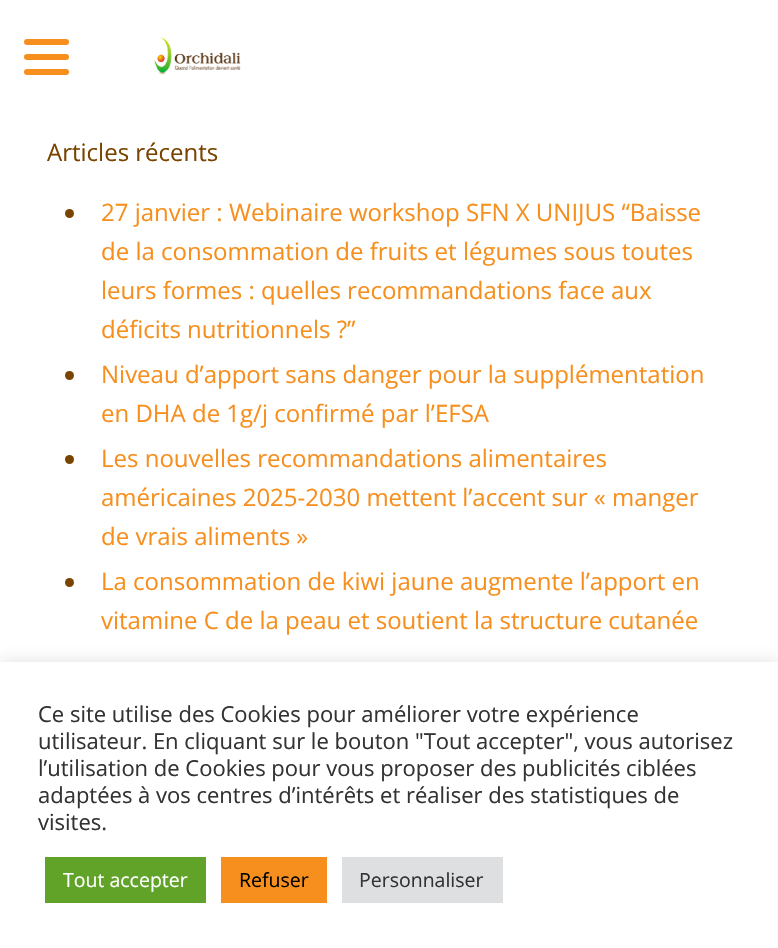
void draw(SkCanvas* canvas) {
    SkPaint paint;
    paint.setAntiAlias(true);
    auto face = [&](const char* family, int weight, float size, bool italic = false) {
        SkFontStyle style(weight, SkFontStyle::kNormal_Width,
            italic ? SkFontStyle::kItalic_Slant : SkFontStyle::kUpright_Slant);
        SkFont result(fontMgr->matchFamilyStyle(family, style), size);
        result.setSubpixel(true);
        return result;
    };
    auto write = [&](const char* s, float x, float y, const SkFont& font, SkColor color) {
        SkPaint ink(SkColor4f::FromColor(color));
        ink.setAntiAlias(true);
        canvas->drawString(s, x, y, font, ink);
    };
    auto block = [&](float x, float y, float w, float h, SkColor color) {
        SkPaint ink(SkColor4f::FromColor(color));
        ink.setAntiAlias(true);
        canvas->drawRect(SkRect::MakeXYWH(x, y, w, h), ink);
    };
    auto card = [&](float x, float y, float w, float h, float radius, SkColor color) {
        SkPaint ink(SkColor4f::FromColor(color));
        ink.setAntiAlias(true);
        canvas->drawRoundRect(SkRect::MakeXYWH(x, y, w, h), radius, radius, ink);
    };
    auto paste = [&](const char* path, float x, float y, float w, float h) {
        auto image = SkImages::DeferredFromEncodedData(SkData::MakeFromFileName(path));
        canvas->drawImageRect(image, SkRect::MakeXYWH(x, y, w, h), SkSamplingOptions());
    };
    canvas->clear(SK_ColorWHITE);
    card(24, 39, 45, 6, 3, SkColorSetRGB(247, 143, 30));
    card(24, 54, 45, 6, 3, SkColorSetRGB(247, 143, 30));
    card(24, 69, 45, 6, 3, SkColorSetRGB(247, 143, 30));
    paste("pic1.png", 154, 37, 87, 38);
    auto kFont1 = face("Open Sans", 400, 24);
    write("Articles récents", 47, 161, kFont1, SkColorSetRGB(121, 68, 0));
    paint.setColor(SkColorSetRGB(121, 68, 0));
    canvas->drawCircle(69.5f, 213.5f, 4.5f, paint);
    write("27 janvier : Webinaire workshop SFN X UNIJUS “Baisse", 101, 221, kFont1, SkColorSetRGB(247, 143, 30));
    write("de la consommation de fruits et légumes sous toutes", 101, 260, kFont1, SkColorSetRGB(247, 143, 30));
    write("leurs formes : quelles recommandations face aux", 101, 299, kFont1, SkColorSetRGB(247, 143, 30));
    write("déficits nutritionnels ?”", 101, 338, kFont1, SkColorSetRGB(247, 143, 30));
    canvas->drawCircle(69.5f, 375.5f, 4.5f, paint);
    write("Niveau d’apport sans danger pour la supplémentation", 101, 383, kFont1, SkColorSetRGB(247, 143, 30));
    write("en DHA de 1g/j confirmé par l’EFSA", 101, 422, kFont1, SkColorSetRGB(247, 143, 30));
    canvas->drawCircle(69.5f, 459.5f, 4.5f, paint);
    write("Les nouvelles recommandations alimentaires", 101, 467, kFont1, SkColorSetRGB(247, 143, 30));
    write("américaines 2025-2030 mettent l’accent sur « manger", 101, 506, kFont1, SkColorSetRGB(247, 143, 30));
    write("de vrais aliments »", 101, 545, kFont1, SkColorSetRGB(247, 143, 30));
    canvas->drawCircle(69.5f, 582.5f, 4.5f, paint);
    write("La consommation de kiwi jaune augmente l’apport en", 101, 590, kFont1, SkColorSetRGB(247, 143, 30));
    write("vitamine C de la peau et soutient la structure cutanée", 101, 629, kFont1, SkColorSetRGB(247, 143, 30));
    paint.setColor(SkColorSetARGB(77, 172, 171, 171));
    paint.setMaskFilter(SkMaskFilter::MakeBlur(kNormal_SkBlurStyle, 7.5f));
    canvas->drawRect(SkRect::MakeXYWH(0, 660, 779, 287), paint);
    paint.setMaskFilter(nullptr);
    block(0, 662, 778, 286, SK_ColorWHITE);
    auto kFont2 = face("Open Sans", 400, 22);
    write("Ce site utilise des Cookies pour améliorer votre expérience", 38, 722, kFont2, SkColorSetRGB(51, 51, 51));
    write("utilisateur. En cliquant sur le bouton \"Tout accepter\", vous autorisez", 38, 749, kFont2, SkColorSetRGB(51, 51, 51));
    write("l’utilisation de Cookies pour vous proposer des publicités ciblées", 38, 776, kFont2, SkColorSetRGB(51, 51, 51));
    write("adaptées à vos centres d’intérêts et réaliser des statistiques de", 38, 803, kFont2, SkColorSetRGB(51, 51, 51));
    write("visites.", 38, 830, kFont2, SkColorSetRGB(51, 51, 51));
    block(45, 857, 161, 46, SkColorSetRGB(97, 162, 41));
    auto kFont3 = face("Open Sans", 400, 19.5f);
    write("Tout accepter", 63, 887, kFont3, SK_ColorWHITE);
    block(221, 857, 106, 46, SkColorSetRGB(247, 143, 30));
    write("Refuser", 239, 887, kFont3, SkColorSetRGB(2, 2, 2));
    block(342, 857, 161, 46, SkColorSetRGB(222, 223, 224));
    write("Personnaliser", 359, 887, kFont3, SkColorSetRGB(51, 51, 51));
}
